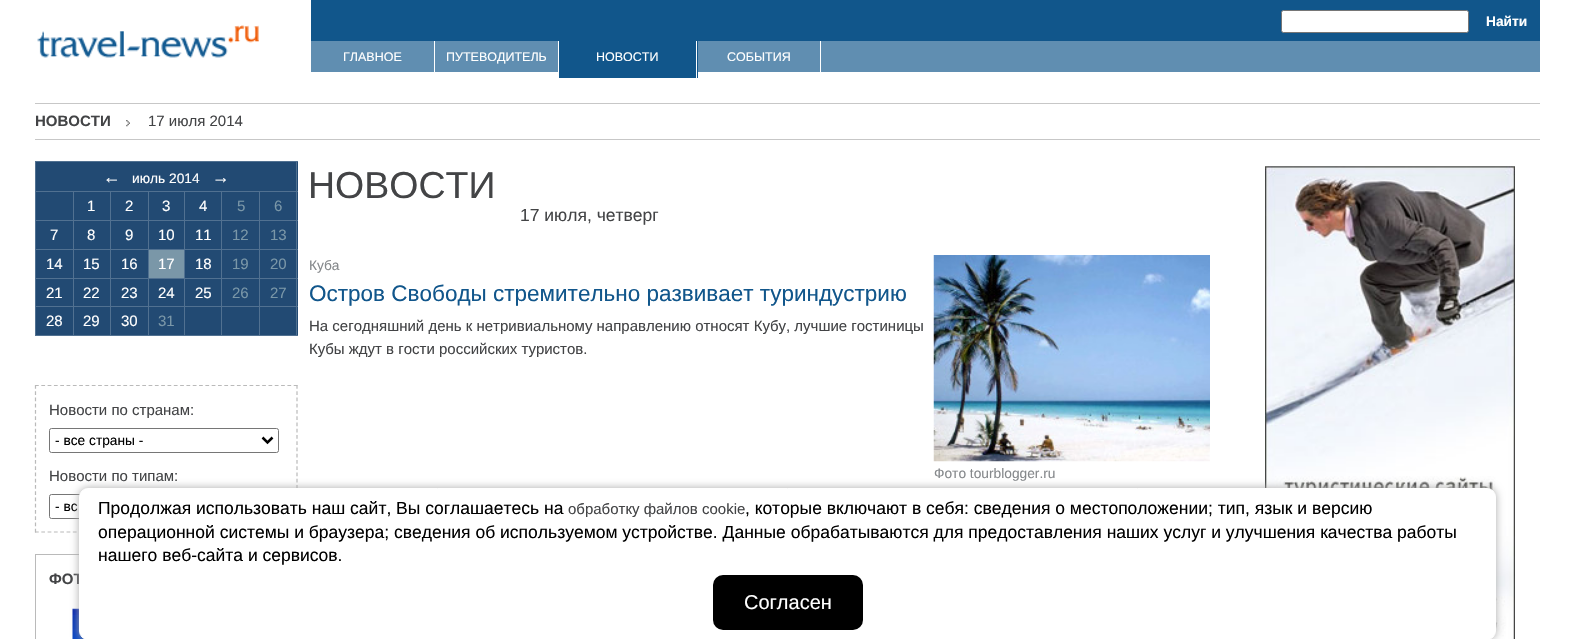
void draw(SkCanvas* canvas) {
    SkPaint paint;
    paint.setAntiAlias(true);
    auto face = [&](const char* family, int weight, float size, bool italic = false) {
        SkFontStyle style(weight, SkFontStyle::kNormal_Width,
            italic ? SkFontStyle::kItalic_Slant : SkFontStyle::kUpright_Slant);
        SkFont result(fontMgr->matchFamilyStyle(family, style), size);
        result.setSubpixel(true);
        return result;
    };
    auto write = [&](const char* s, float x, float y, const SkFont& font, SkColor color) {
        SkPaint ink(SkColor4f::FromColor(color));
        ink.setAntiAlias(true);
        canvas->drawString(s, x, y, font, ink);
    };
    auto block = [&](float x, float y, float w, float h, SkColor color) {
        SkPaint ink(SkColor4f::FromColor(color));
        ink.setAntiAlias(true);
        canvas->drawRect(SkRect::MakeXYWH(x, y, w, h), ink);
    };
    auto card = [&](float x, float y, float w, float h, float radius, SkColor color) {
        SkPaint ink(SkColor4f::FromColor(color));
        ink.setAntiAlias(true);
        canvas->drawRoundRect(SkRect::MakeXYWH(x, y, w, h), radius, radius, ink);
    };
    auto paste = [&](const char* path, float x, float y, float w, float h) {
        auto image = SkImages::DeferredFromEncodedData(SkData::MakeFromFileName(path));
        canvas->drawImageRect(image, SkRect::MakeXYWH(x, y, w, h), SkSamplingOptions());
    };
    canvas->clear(SK_ColorWHITE);
    block(311, 0, 1229, 41, SkColorSetRGB(17, 86, 139));
    paint.setColor(SK_ColorWHITE);
    canvas->drawRoundRect(SkRect::MakeXYWH(1281.5f, 10.5f, 187, 22), 2, 2, paint);
    paint.setStyle(SkPaint::kStroke_Style);
    paint.setStrokeWidth(1);
    paint.setColor(SkColorSetRGB(118, 118, 118));
    canvas->drawRoundRect(SkRect::MakeXYWH(1281.5f, 10.5f, 187, 22), 2, 2, paint);
    auto kFont1 = face("Liberation Sans", 700, 13.75f);
    write("Найти", 1486, 26, kFont1, SK_ColorWHITE);
    paste("pic1.png", 37, 25, 222, 33);
    block(311, 41, 1229, 31, SkColorSetRGB(96, 142, 177));
    block(434, 41, 1, 37, SK_ColorWHITE);
    auto kFont2 = face("Liberation Sans", 400, 12.5f);
    write("ГЛАВНОЕ", 343, 61, kFont2, SK_ColorWHITE);
    block(558, 41, 1, 37, SK_ColorWHITE);
    write("ПУТЕВОДИТЕЛЬ", 446, 61, kFont2, SK_ColorWHITE);
    block(559, 41, 139, 37, SkColorSetRGB(17, 86, 139));
    block(696, 41, 1, 37, SK_ColorWHITE);
    write("НОВОСТИ", 596, 61, kFont2, SK_ColorWHITE);
    block(820, 41, 1, 37, SK_ColorWHITE);
    write("СОБЫТИЯ", 727, 61, kFont2, SK_ColorWHITE);
    block(35, 103, 1505, 1, SkColorSetRGB(199, 199, 199));
    block(35, 139, 1505, 1, SkColorSetRGB(199, 199, 199));
    auto kFont3 = face("Liberation Sans", 700, 15);
    write("НОВОСТИ", 35, 126, kFont3, SkColorSetRGB(67, 68, 70));
    paste("pic2.png", 126, 120, 4, 7);
    auto kFont4 = face("Liberation Sans", 400, 15);
    write("17 июля 2014", 148, 126, kFont4, SkColorSetRGB(67, 68, 70));
    block(36, 162, 262, 173, SkColorSetRGB(34, 74, 115));
    block(35, 161, 263, 1, SkColorSetRGB(81, 113, 145));
    block(259, 191, 39, 1, SkColorSetRGB(81, 113, 145));
    block(259, 220, 39, 1, SkColorSetRGB(81, 113, 145));
    block(259, 249, 39, 1, SkColorSetRGB(81, 113, 145));
    block(259, 278, 39, 1, SkColorSetRGB(81, 113, 145));
    block(259, 306, 39, 1, SkColorSetRGB(81, 113, 145));
    block(296, 306, 1, 30, SkColorSetRGB(81, 113, 145));
    block(296, 278, 1, 30, SkColorSetRGB(81, 113, 145));
    block(296, 249, 1, 30, SkColorSetRGB(81, 113, 145));
    block(296, 220, 1, 30, SkColorSetRGB(81, 113, 145));
    block(296, 191, 1, 30, SkColorSetRGB(81, 113, 145));
    block(296, 161, 1, 32, SkColorSetRGB(81, 113, 145));
    block(259, 335, 39, 1, SkColorSetRGB(81, 113, 145));
    block(259, 306, 1, 30, SkColorSetRGB(81, 113, 145));
    block(221, 306, 39, 1, SkColorSetRGB(81, 113, 145));
    block(259, 278, 1, 30, SkColorSetRGB(81, 113, 145));
    block(221, 278, 39, 1, SkColorSetRGB(81, 113, 145));
    block(259, 249, 1, 30, SkColorSetRGB(81, 113, 145));
    block(221, 249, 39, 1, SkColorSetRGB(81, 113, 145));
    block(259, 220, 1, 30, SkColorSetRGB(81, 113, 145));
    block(221, 220, 39, 1, SkColorSetRGB(81, 113, 145));
    block(259, 191, 1, 30, SkColorSetRGB(81, 113, 145));
    block(221, 191, 39, 1, SkColorSetRGB(81, 113, 145));
    block(221, 335, 39, 1, SkColorSetRGB(81, 113, 145));
    block(221, 306, 1, 30, SkColorSetRGB(81, 113, 145));
    block(184, 306, 39, 1, SkColorSetRGB(81, 113, 145));
    block(221, 278, 1, 30, SkColorSetRGB(81, 113, 145));
    block(184, 278, 39, 1, SkColorSetRGB(81, 113, 145));
    block(221, 249, 1, 30, SkColorSetRGB(81, 113, 145));
    block(184, 249, 39, 1, SkColorSetRGB(81, 113, 145));
    block(221, 220, 1, 30, SkColorSetRGB(81, 113, 145));
    block(184, 220, 39, 1, SkColorSetRGB(81, 113, 145));
    block(221, 191, 1, 30, SkColorSetRGB(81, 113, 145));
    block(184, 191, 39, 1, SkColorSetRGB(81, 113, 145));
    block(184, 335, 39, 1, SkColorSetRGB(81, 113, 145));
    block(184, 306, 1, 30, SkColorSetRGB(81, 113, 145));
    block(148, 306, 37, 1, SkColorSetRGB(81, 113, 145));
    block(184, 278, 1, 30, SkColorSetRGB(81, 113, 145));
    block(148, 278, 37, 1, SkColorSetRGB(81, 113, 145));
    block(184, 249, 1, 30, SkColorSetRGB(81, 113, 145));
    block(148, 249, 37, 1, SkColorSetRGB(81, 113, 145));
    block(184, 220, 1, 30, SkColorSetRGB(81, 113, 145));
    block(148, 220, 37, 1, SkColorSetRGB(81, 113, 145));
    block(184, 191, 1, 30, SkColorSetRGB(81, 113, 145));
    block(148, 191, 37, 1, SkColorSetRGB(81, 113, 145));
    block(148, 335, 37, 1, SkColorSetRGB(81, 113, 145));
    block(148, 306, 1, 30, SkColorSetRGB(81, 113, 145));
    block(110, 306, 39, 1, SkColorSetRGB(81, 113, 145));
    block(148, 278, 1, 30, SkColorSetRGB(81, 113, 145));
    block(110, 278, 39, 1, SkColorSetRGB(81, 113, 145));
    block(148, 249, 1, 30, SkColorSetRGB(81, 113, 145));
    block(110, 249, 39, 1, SkColorSetRGB(81, 113, 145));
    block(148, 220, 1, 30, SkColorSetRGB(81, 113, 145));
    block(110, 220, 39, 1, SkColorSetRGB(81, 113, 145));
    block(148, 191, 1, 30, SkColorSetRGB(81, 113, 145));
    block(110, 191, 39, 1, SkColorSetRGB(81, 113, 145));
    block(110, 335, 39, 1, SkColorSetRGB(81, 113, 145));
    block(110, 306, 1, 30, SkColorSetRGB(81, 113, 145));
    block(73, 306, 38, 1, SkColorSetRGB(81, 113, 145));
    block(110, 278, 1, 30, SkColorSetRGB(81, 113, 145));
    block(73, 278, 38, 1, SkColorSetRGB(81, 113, 145));
    block(110, 249, 1, 30, SkColorSetRGB(81, 113, 145));
    block(73, 249, 38, 1, SkColorSetRGB(81, 113, 145));
    block(110, 220, 1, 30, SkColorSetRGB(81, 113, 145));
    block(73, 220, 38, 1, SkColorSetRGB(81, 113, 145));
    block(110, 191, 1, 30, SkColorSetRGB(81, 113, 145));
    block(73, 191, 38, 1, SkColorSetRGB(81, 113, 145));
    block(73, 335, 38, 1, SkColorSetRGB(81, 113, 145));
    block(73, 306, 1, 30, SkColorSetRGB(81, 113, 145));
    block(35, 306, 39, 1, SkColorSetRGB(81, 113, 145));
    block(73, 278, 1, 30, SkColorSetRGB(81, 113, 145));
    block(35, 278, 39, 1, SkColorSetRGB(81, 113, 145));
    block(73, 249, 1, 30, SkColorSetRGB(81, 113, 145));
    block(35, 249, 39, 1, SkColorSetRGB(81, 113, 145));
    block(73, 220, 1, 30, SkColorSetRGB(81, 113, 145));
    block(35, 220, 39, 1, SkColorSetRGB(81, 113, 145));
    block(73, 191, 1, 30, SkColorSetRGB(81, 113, 145));
    block(35, 191, 39, 1, SkColorSetRGB(81, 113, 145));
    block(35, 335, 39, 1, SkColorSetRGB(81, 113, 145));
    block(35, 306, 1, 30, SkColorSetRGB(81, 113, 145));
    block(35, 278, 1, 30, SkColorSetRGB(81, 113, 145));
    block(35, 249, 1, 30, SkColorSetRGB(81, 113, 145));
    block(35, 220, 1, 30, SkColorSetRGB(81, 113, 145));
    block(35, 191, 1, 30, SkColorSetRGB(81, 113, 145));
    block(35, 161, 1, 32, SkColorSetRGB(81, 113, 145));
    auto kFont5 = face("Liberation Sans", 400, 17.5f);
    write("←", 103, 183, kFont5, SK_ColorWHITE);
    auto kFont6 = face("Liberation Sans", 400, 13.75f);
    write("июль 2014", 132, 183, kFont6, SK_ColorWHITE);
    write("→", 212, 183, kFont5, SK_ColorWHITE);
    write("1", 87, 211, kFont4, SK_ColorWHITE);
    write("2", 125, 211, kFont4, SK_ColorWHITE);
    write("3", 162, 211, kFont4, SK_ColorWHITE);
    write("4", 199, 211, kFont4, SK_ColorWHITE);
    write("5", 237, 211, kFont4, SkColorSetRGB(122, 151, 168));
    write("6", 274, 211, kFont4, SkColorSetRGB(122, 151, 168));
    write("7", 50, 240, kFont4, SK_ColorWHITE);
    write("8", 87, 240, kFont4, SK_ColorWHITE);
    write("9", 125, 240, kFont4, SK_ColorWHITE);
    write("10", 158, 240, kFont4, SK_ColorWHITE);
    write("11", 195, 240, kFont4, SK_ColorWHITE);
    write("12", 232, 240, kFont4, SkColorSetRGB(122, 151, 168));
    write("13", 270, 240, kFont4, SkColorSetRGB(122, 151, 168));
    write("14", 46, 269, kFont4, SK_ColorWHITE);
    write("15", 83, 269, kFont4, SK_ColorWHITE);
    write("16", 121, 269, kFont4, SK_ColorWHITE);
    block(149, 250, 35, 28, SkColorSetRGB(122, 151, 168));
    write("17", 158, 269, kFont4, SK_ColorWHITE);
    write("18", 195, 269, kFont4, SK_ColorWHITE);
    write("19", 232, 269, kFont4, SkColorSetRGB(122, 151, 168));
    write("20", 270, 269, kFont4, SkColorSetRGB(122, 151, 168));
    write("21", 46, 298, kFont4, SK_ColorWHITE);
    write("22", 83, 298, kFont4, SK_ColorWHITE);
    write("23", 121, 298, kFont4, SK_ColorWHITE);
    write("24", 158, 298, kFont4, SK_ColorWHITE);
    write("25", 195, 298, kFont4, SK_ColorWHITE);
    write("26", 232, 298, kFont4, SkColorSetRGB(122, 151, 168));
    write("27", 270, 298, kFont4, SkColorSetRGB(122, 151, 168));
    write("28", 46, 326, kFont4, SK_ColorWHITE);
    write("29", 83, 326, kFont4, SK_ColorWHITE);
    write("30", 121, 326, kFont4, SK_ColorWHITE);
    write("31", 158, 326, kFont4, SkColorSetRGB(122, 151, 168));
    paint.setStrokeWidth(1.2f);
    paint.setColor(SkColorSetRGB(186, 186, 186));
    paint.setPathEffect(SkDashPathEffect::Make({{3.75f, 2.56f}}, 0));
    canvas->drawPath(SkPathBuilder().moveTo(35, 385.5f).lineTo(297.5f, 385.5f).detach(), paint);
    paint.setPathEffect(nullptr);
    paint.setPathEffect(SkDashPathEffect::Make({{3.75f, 2.5f}}, 0));
    canvas->drawPath(SkPathBuilder().moveTo(297, 385).lineTo(297, 532.5f).detach(), paint);
    paint.setPathEffect(nullptr);
    paint.setPathEffect(SkDashPathEffect::Make({{3.75f, 2.56f}}, 0));
    canvas->drawPath(SkPathBuilder().moveTo(35, 532).lineTo(297.5f, 532).detach(), paint);
    paint.setPathEffect(nullptr);
    paint.setPathEffect(SkDashPathEffect::Make({{3.75f, 2.5f}}, 0));
    canvas->drawPath(SkPathBuilder().moveTo(35.5f, 385).lineTo(35.5f, 532.5f).detach(), paint);
    paint.setPathEffect(nullptr);
    write("Новости по странам:", 49, 415, kFont4, SkColorSetRGB(67, 68, 70));
    paint.setStrokeWidth(1);
    paint.setColor(SkColorSetRGB(118, 118, 118));
    canvas->drawRoundRect(SkRect::MakeXYWH(49.5f, 428.5f, 229, 24), 2, 2, paint);
    paint.setStrokeWidth(2.5f);
    paint.setColor(SK_ColorBLACK);
    canvas->drawPath(SkPathBuilder().moveTo(262.5f, 437.5f).lineTo(267.5f, 442.5f).lineTo(272.5f, 437.5f).detach(), paint);
    write("- все страны -", 55, 445, kFont6, SK_ColorBLACK);
    write("Новости по типам:", 49, 481, kFont4, SkColorSetRGB(67, 68, 70));
    paint.setStrokeWidth(1);
    paint.setColor(SkColorSetRGB(118, 118, 118));
    canvas->drawRoundRect(SkRect::MakeXYWH(49.5f, 494.5f, 229, 24), 2, 2, paint);
    write("- вс", 55, 511, kFont6, SK_ColorBLACK);
    paint.setColor(SkColorSetRGB(186, 186, 186));
    canvas->drawRect(SkRect::MakeXYWH(35.5f, 554.5f, 262, 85), paint);
    write("ФОТ", 49, 584, kFont3, SkColorSetRGB(67, 68, 70));
    paste("pic3.png", 72, 608, 12, 31);
    auto kFont7 = face("Liberation Sans", 400, 37.5f);
    write("НОВОСТИ", 308, 198, kFont7, SkColorSetRGB(67, 68, 70));
    write("17 июля, четверг", 520, 221, kFont5, SkColorSetRGB(67, 68, 70));
    write("Куба", 309, 270, kFont6, SkColorSetRGB(134, 137, 140));
    auto kFont8 = face("Liberation Sans", 400, 22.5f);
    write("Остров Свободы стремительно развивает туриндустрию", 309, 301, kFont8, SkColorSetRGB(17, 86, 139));
    write("На сегодняшний день к нетривиальному направлению относят Кубу, лучшие гостиницы", 309, 331, kFont4, SkColorSetRGB(67, 68, 70));
    write("Кубы ждут в гости российских туристов.", 309, 354, kFont4, SkColorSetRGB(67, 68, 70));
    paste("pic4.png", 933, 255, 277, 207);
    write("Фото tourblogger.ru", 934, 478, kFont6, SkColorSetRGB(134, 137, 140));
    paste("pic5.png", 1265, 166, 250, 473);
    paint.setStyle(SkPaint::kFill_Style);
    paint.setColor(SkColorSetRGB(170, 170, 170));
    paint.setMaskFilter(SkMaskFilter::MakeBlur(kNormal_SkBlurStyle, 4.5f));
    canvas->drawRoundRect(SkRect::MakeXYWH(79, 488, 1417, 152), 9, 9, paint);
    paint.setMaskFilter(nullptr);
    paint.setColor(SK_ColorWHITE);
    canvas->drawRoundRect(SkRect::MakeXYWH(79.5f, 488.5f, 1416, 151), 8.5f, 8.5f, paint);
    paint.setStyle(SkPaint::kStroke_Style);
    canvas->drawRoundRect(SkRect::MakeXYWH(79.5f, 488.5f, 1416, 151), 8.5f, 8.5f, paint);
    write("Продолжая использовать наш сайт, Вы соглашаетесь на", 98, 514, kFont5, SK_ColorBLACK);
    write("обработку файлов cookie", 568, 514, kFont4, SkColorSetRGB(67, 68, 70));
    write(", которые включают в себя: сведения о местоположении; тип, язык и версию", 745, 514, kFont5, SK_ColorBLACK);
    write("операционной системы и браузера; сведения об используемом устройстве. Данные обрабатываются для предоставления наших услуг и улучшения качества работы", 98, 538, kFont5, SK_ColorBLACK);
    write("нашего веб-сайта и сервисов.", 98, 561, kFont5, SK_ColorBLACK);
    card(713, 575, 150, 55, 10, SK_ColorBLACK);
    auto kFont9 = face("Liberation Sans", 400, 20);
    write("Согласен", 744, 609, kFont9, SK_ColorWHITE);
}
